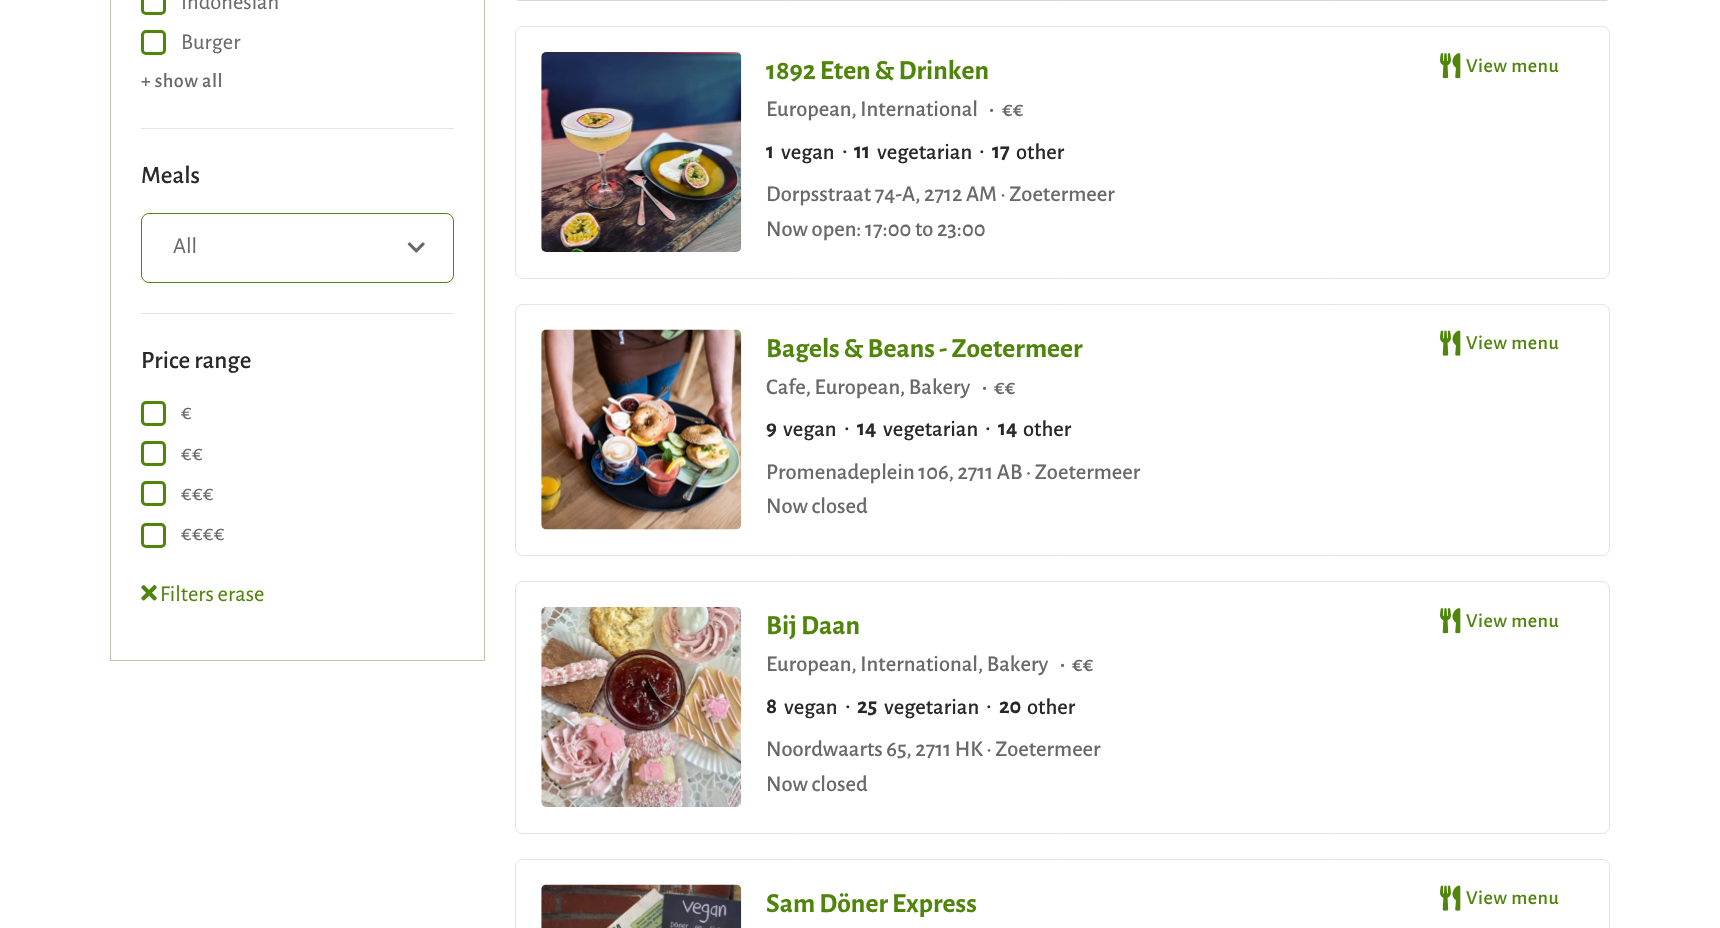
void draw(SkCanvas* canvas) {
    SkPaint paint;
    paint.setAntiAlias(true);
    auto face = [&](const char* family, int weight, float size, bool italic = false) {
        SkFontStyle style(weight, SkFontStyle::kNormal_Width,
            italic ? SkFontStyle::kItalic_Slant : SkFontStyle::kUpright_Slant);
        SkFont result(fontMgr->matchFamilyStyle(family, style), size);
        result.setSubpixel(true);
        return result;
    };
    auto write = [&](const char* s, float x, float y, const SkFont& font, SkColor color) {
        SkPaint ink(SkColor4f::FromColor(color));
        ink.setAntiAlias(true);
        canvas->drawString(s, x, y, font, ink);
    };
    auto writeSpaced = [&](const char* s, float x, float y, const SkFont& font, const SkPaint& ink, float letter, float word) {
        std::vector<SkGlyphID> glyphs(font.countText(s, strlen(s), SkTextEncoding::kUTF8));
        std::vector<float> xs(glyphs.size());
        font.textToGlyphs(s, strlen(s), SkTextEncoding::kUTF8, glyphs);
        font.getXPos(glyphs, xs, x);
        float extra = 0;
        for (size_t i = 0; i < glyphs.size(); i++) {
            xs[i] += extra;
            extra += letter + word * (glyphs[i] == font.unicharToGlyph(' '));
        }
        canvas->drawTextBlob(SkTextBlob::MakeFromPosHGlyphs(glyphs, xs, y, font), 0, 0, ink);
    };
    auto block = [&](float x, float y, float w, float h, SkColor color) {
        SkPaint ink(SkColor4f::FromColor(color));
        ink.setAntiAlias(true);
        canvas->drawRect(SkRect::MakeXYWH(x, y, w, h), ink);
    };
    auto paste = [&](const char* path, float x, float y, float w, float h) {
        auto image = SkImages::DeferredFromEncodedData(SkData::MakeFromFileName(path));
        canvas->drawImageRect(image, SkRect::MakeXYWH(x, y, w, h), SkSamplingOptions());
    };
    canvas->clear(SK_ColorWHITE);
    paint.setStyle(SkPaint::kStroke_Style);
    paint.setStrokeWidth(1);
    paint.setColor(SkColorSetRGB(183, 199, 167));
    canvas->drawRect(SkRect::MakeXYWH(110.5f, -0.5f, 374, 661), paint);
    paint.setStrokeWidth(3);
    paint.setColor(SkColorSetRGB(80, 133, 11));
    canvas->drawRoundRect(SkRect::MakeXYWH(142.5f, -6.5f, 22, 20), 3.5f, 3.5f, paint);
    auto kFont1 = face("Alegreya Sans", 400, 22.5f);
    write("Indonesian", 181, 9, kFont1, SkColorSetRGB(105, 105, 105));
    canvas->drawRoundRect(SkRect::MakeXYWH(142.5f, 31.5f, 22, 22), 3.5f, 3.5f, paint);
    write("Burger", 181, 49, kFont1, SkColorSetRGB(105, 105, 105));
    auto kFont2 = face("Alegreya Sans", 500, 20);
    paint.setStyle(SkPaint::kFill_Style);
    paint.setColor(SkColorSetRGB(105, 105, 105));
    writeSpaced("+ show all", 141, 87, kFont2, paint, 0.5f, 0);
    block(141, 128, 313, 1, SkColorSetRGB(228, 228, 228));
    auto kFont3 = face("Alegreya Sans", 500, 25);
    write("Meals", 141, 183, kFont3, SkColorSetRGB(41, 41, 41));
    paint.setStyle(SkPaint::kStroke_Style);
    paint.setStrokeWidth(1);
    paint.setColor(SkColorSetRGB(80, 133, 11));
    canvas->drawRoundRect(SkRect::MakeXYWH(141.5f, 213.5f, 312, 69), 7.5f, 7.5f, paint);
    write("All", 173, 253, kFont1, SkColorSetRGB(105, 105, 105));
    paste("pic1.png", 407, 242, 18, 11);
    block(141, 313, 313, 1, SkColorSetRGB(228, 228, 228));
    write("Price range", 141, 368, kFont3, SkColorSetRGB(41, 41, 41));
    paint.setStrokeWidth(3);
    canvas->drawRoundRect(SkRect::MakeXYWH(142.5f, 402.5f, 22, 22), 3.5f, 3.5f, paint);
    write("€", 181, 419, kFont1, SkColorSetRGB(105, 105, 105));
    canvas->drawRoundRect(SkRect::MakeXYWH(142.5f, 442.5f, 22, 22), 3.5f, 3.5f, paint);
    write("€€", 181, 460, kFont1, SkColorSetRGB(105, 105, 105));
    canvas->drawRoundRect(SkRect::MakeXYWH(142.5f, 482.5f, 22, 22), 3.5f, 3.5f, paint);
    write("€€€", 181, 500, kFont1, SkColorSetRGB(105, 105, 105));
    canvas->drawRoundRect(SkRect::MakeXYWH(142.5f, 524.5f, 22, 22), 3.5f, 3.5f, paint);
    write("€€€€", 181, 540, kFont1, SkColorSetRGB(105, 105, 105));
    paste("pic2.png", 141, 585, 16, 16);
    write("Filters erase", 160, 601, kFont1, SkColorSetRGB(80, 133, 11));
    paint.setStrokeWidth(1);
    paint.setColor(SkColorSetRGB(212, 217, 205));
    canvas->drawRoundRect(SkRect::MakeXYWH(515.5f, -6.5f, 1094, 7), 5.5f, 5.5f, paint);
    paint.setColor(SkColorSetRGB(228, 228, 228));
    canvas->drawRoundRect(SkRect::MakeXYWH(515.5f, 26.5f, 1094, 252), 7.5f, 7.5f, paint);
    paste("pic3.png", 541, 52, 201, 200);
    auto kFont4 = face("Alegreya Sans", 700, 27.5f);
    write("1892 Eten & Drinken", 766, 79, kFont4, SkColorSetRGB(80, 133, 11));
    paste("pic4.png", 1440, 53, 21, 26);
    paint.setStyle(SkPaint::kFill_Style);
    paint.setColor(SkColorSetRGB(80, 133, 11));
    writeSpaced("View menu", 1466, 72, kFont2, paint, 0.5f, 0);
    auto kFont5 = face("Alegreya Sans", 500, 22.5f);
    write("European, International", 766, 116, kFont5, SkColorSetRGB(105, 105, 105));
    auto kFont6 = face("Alegreya Sans", 700, 22.5f);
    write("·", 989, 116, kFont6, SkColorSetRGB(105, 105, 105));
    write("€€", 1002, 116, kFont5, SkColorSetRGB(105, 105, 105));
    write("1", 766, 158, kFont6, SkColorSetRGB(41, 41, 41));
    write("vegan", 781, 159, kFont5, SkColorSetRGB(41, 41, 41));
    write("·", 842, 158, kFont3, SkColorSetRGB(41, 41, 41));
    write("11", 854, 158, kFont6, SkColorSetRGB(41, 41, 41));
    write("vegetarian", 877, 159, kFont5, SkColorSetRGB(41, 41, 41));
    write("·", 979, 158, kFont3, SkColorSetRGB(41, 41, 41));
    write("17", 992, 158, kFont6, SkColorSetRGB(41, 41, 41));
    write("other", 1016, 159, kFont5, SkColorSetRGB(41, 41, 41));
    write("Dorpsstraat 74-A, 2712 AM · Zoetermeer", 766, 201, kFont5, SkColorSetRGB(105, 105, 105));
    write("Now open: 17:00 to 23:00", 766, 236, kFont5, SkColorSetRGB(105, 105, 105));
    paint.setStyle(SkPaint::kStroke_Style);
    paint.setColor(SkColorSetRGB(228, 228, 228));
    canvas->drawRoundRect(SkRect::MakeXYWH(515.5f, 304.5f, 1094, 251), 7.5f, 7.5f, paint);
    paste("pic5.png", 541, 329, 201, 201);
    write("Bagels & Beans - Zoetermeer", 766, 357, kFont4, SkColorSetRGB(80, 133, 11));
    paste("pic6.png", 1440, 330, 21, 26);
    paint.setStyle(SkPaint::kFill_Style);
    paint.setColor(SkColorSetRGB(80, 133, 11));
    writeSpaced("View menu", 1466, 349, kFont2, paint, 0.5f, 0);
    write("Cafe, European, Bakery", 766, 394, kFont5, SkColorSetRGB(105, 105, 105));
    write("·", 982, 394, kFont6, SkColorSetRGB(105, 105, 105));
    write("€€", 994, 394, kFont5, SkColorSetRGB(105, 105, 105));
    write("9", 766, 435, kFont6, SkColorSetRGB(41, 41, 41));
    write("vegan", 783, 436, kFont5, SkColorSetRGB(41, 41, 41));
    write("·", 844, 435, kFont3, SkColorSetRGB(41, 41, 41));
    write("14", 857, 435, kFont6, SkColorSetRGB(41, 41, 41));
    write("vegetarian", 883, 436, kFont5, SkColorSetRGB(41, 41, 41));
    write("·", 985, 435, kFont3, SkColorSetRGB(41, 41, 41));
    write("14", 998, 435, kFont6, SkColorSetRGB(41, 41, 41));
    write("other", 1023, 436, kFont5, SkColorSetRGB(41, 41, 41));
    write("Promenadeplein 106, 2711 AB · Zoetermeer", 766, 479, kFont5, SkColorSetRGB(105, 105, 105));
    write("Now closed", 766, 513, kFont5, SkColorSetRGB(105, 105, 105));
    paint.setStyle(SkPaint::kStroke_Style);
    paint.setColor(SkColorSetRGB(228, 228, 228));
    canvas->drawRoundRect(SkRect::MakeXYWH(515.5f, 581.5f, 1094, 252), 7.5f, 7.5f, paint);
    paste("pic7.png", 541, 607, 201, 200);
    write("Bij Daan", 766, 634, kFont4, SkColorSetRGB(80, 133, 11));
    paste("pic4.png", 1440, 608, 21, 26);
    paint.setStyle(SkPaint::kFill_Style);
    paint.setColor(SkColorSetRGB(80, 133, 11));
    writeSpaced("View menu", 1466, 627, kFont2, paint, 0.5f, 0);
    write("European, International, Bakery", 766, 671, kFont5, SkColorSetRGB(105, 105, 105));
    write("·", 1060, 671, kFont6, SkColorSetRGB(105, 105, 105));
    write("€€", 1072, 671, kFont5, SkColorSetRGB(105, 105, 105));
    write("8", 766, 713, kFont6, SkColorSetRGB(41, 41, 41));
    write("vegan", 784, 714, kFont5, SkColorSetRGB(41, 41, 41));
    write("·", 845, 713, kFont3, SkColorSetRGB(41, 41, 41));
    write("25", 857, 713, kFont6, SkColorSetRGB(41, 41, 41));
    write("vegetarian", 884, 714, kFont5, SkColorSetRGB(41, 41, 41));
    write("·", 986, 713, kFont3, SkColorSetRGB(41, 41, 41));
    write("20", 999, 713, kFont6, SkColorSetRGB(41, 41, 41));
    write("other", 1027, 714, kFont5, SkColorSetRGB(41, 41, 41));
    write("Noordwaarts 65, 2711 HK · Zoetermeer", 766, 756, kFont5, SkColorSetRGB(105, 105, 105));
    write("Now closed", 766, 791, kFont5, SkColorSetRGB(105, 105, 105));
    paint.setStyle(SkPaint::kStroke_Style);
    paint.setColor(SkColorSetRGB(228, 228, 228));
    canvas->drawRoundRect(SkRect::MakeXYWH(515.5f, 859.5f, 1094, 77), 7.5f, 7.5f, paint);
    paste("pic8.png", 541, 884, 201, 44);
    write("Sam Döner Express", 766, 912, kFont4, SkColorSetRGB(80, 133, 11));
    paste("pic6.png", 1440, 885, 21, 26);
    paint.setStyle(SkPaint::kFill_Style);
    paint.setColor(SkColorSetRGB(80, 133, 11));
    writeSpaced("View menu", 1466, 904, kFont2, paint, 0.5f, 0);
}
